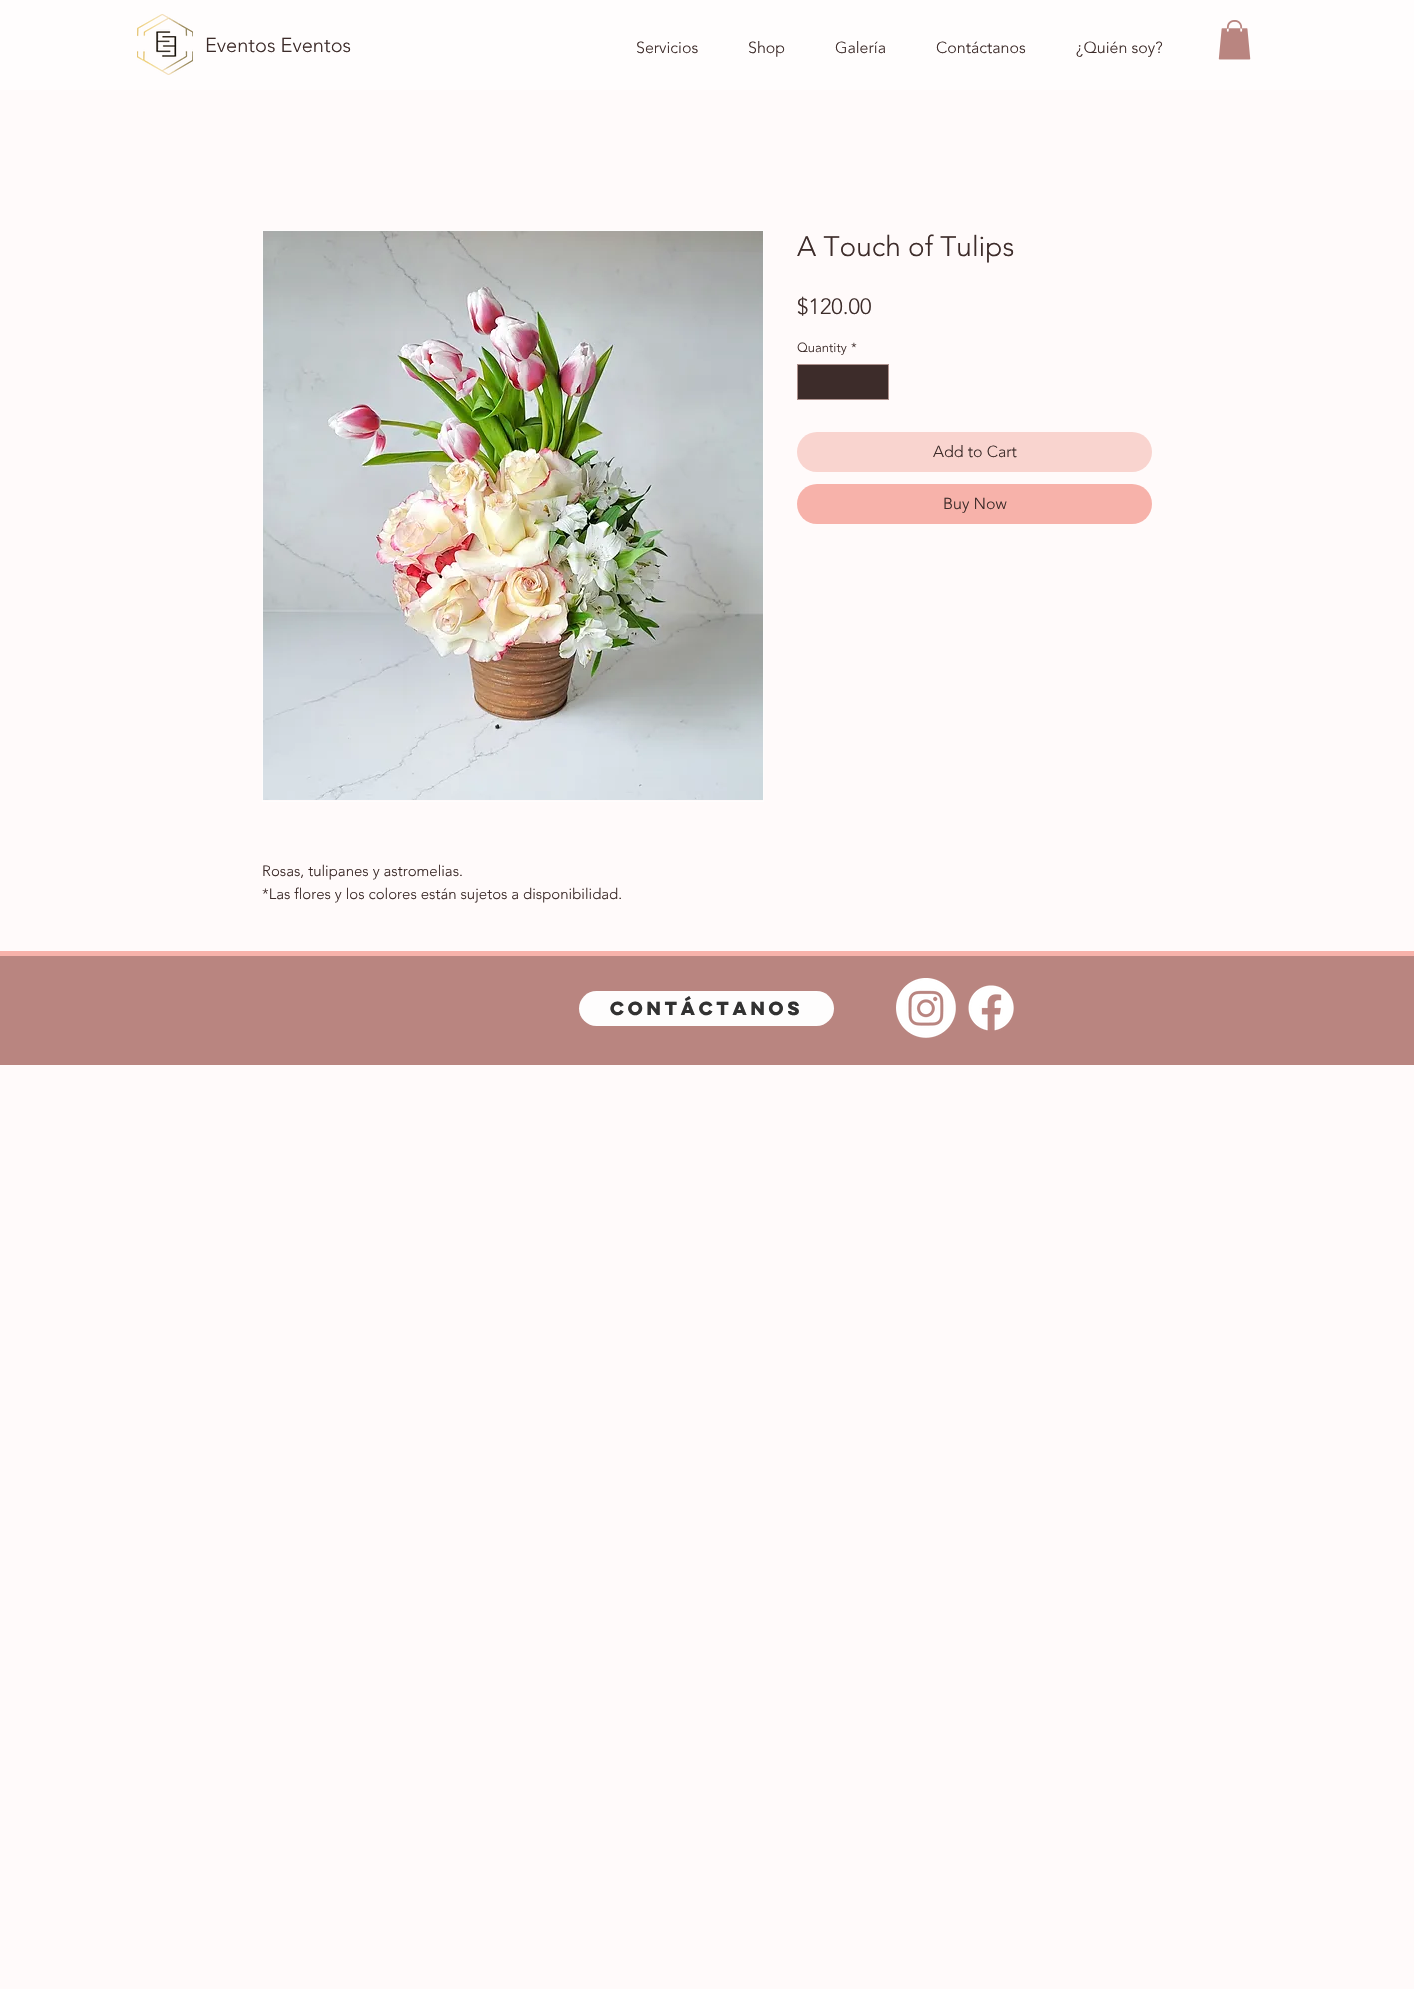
void draw(SkCanvas* canvas) {
    SkPaint paint;
    paint.setAntiAlias(true);
    auto face = [&](const char* family, int weight, float size, bool italic = false) {
        SkFontStyle style(weight, SkFontStyle::kNormal_Width,
            italic ? SkFontStyle::kItalic_Slant : SkFontStyle::kUpright_Slant);
        SkFont result(fontMgr->matchFamilyStyle(family, style), size);
        result.setSubpixel(true);
        return result;
    };
    auto write = [&](const char* s, float x, float y, const SkFont& font, SkColor color) {
        SkPaint ink(SkColor4f::FromColor(color));
        ink.setAntiAlias(true);
        canvas->drawString(s, x, y, font, ink);
    };
    auto block = [&](float x, float y, float w, float h, SkColor color) {
        SkPaint ink(SkColor4f::FromColor(color));
        ink.setAntiAlias(true);
        canvas->drawRect(SkRect::MakeXYWH(x, y, w, h), ink);
    };
    auto card = [&](float x, float y, float w, float h, float radius, SkColor color) {
        SkPaint ink(SkColor4f::FromColor(color));
        ink.setAntiAlias(true);
        canvas->drawRoundRect(SkRect::MakeXYWH(x, y, w, h), radius, radius, ink);
    };
    auto paste = [&](const char* path, float x, float y, float w, float h) {
        auto image = SkImages::DeferredFromEncodedData(SkData::MakeFromFileName(path));
        canvas->drawImageRect(image, SkRect::MakeXYWH(x, y, w, h), SkSamplingOptions());
    };
    canvas->clear(SkColorSetRGB(255, 250, 250));
    block(0, 0, 1414, 90, SkColorSetRGB(255, 253, 253));
    paste("pic1.png", 137, 14, 56, 61);
    auto kFont1 = face("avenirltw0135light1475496", 300, 20);
    write("Eventos Eventos", 205, 52, kFont1, SkColorSetRGB(61, 44, 42));
    auto kFont2 = face("avenirltw0135light1475496", 300, 16);
    write("Servicios", 636, 53, kFont2, SkColorSetRGB(61, 44, 42));
    write("Shop", 748, 53, kFont2, SkColorSetRGB(61, 44, 42));
    write("Galería", 835, 53, kFont2, SkColorSetRGB(61, 44, 42));
    write("Contáctanos", 936, 53, kFont2, SkColorSetRGB(61, 44, 42));
    write("¿Quién soy?", 1076, 53, kFont2, SkColorSetRGB(61, 44, 42));
    paste("pic2.png", 1218, 20, 33, 40);
    auto kFont3 = face("avenirltw0135light1475496", 300, 28);
    write("A Touch of Tulips", 797, 256, kFont3, SkColorSetRGB(61, 44, 42));
    auto kFont4 = face("avenirltw0135light1475496", 300, 22);
    write("$120.00", 797, 314, kFont4, SkColorSetRGB(61, 44, 42));
    auto kFont5 = face("avenirltw0135light1475496", 300, 13);
    write("Quantity", 797, 352, kFont5, SkColorSetRGB(61, 44, 42));
    write("*", 851, 352, kFont5, SkColorSetRGB(61, 44, 42));
    paint.setColor(SkColorSetRGB(61, 44, 42));
    canvas->drawRect(SkRect::MakeXYWH(797.5f, 364.5f, 91, 35), paint);
    paint.setStyle(SkPaint::kStroke_Style);
    paint.setStrokeWidth(1);
    paint.setColor(SkColorSetRGB(174, 145, 141));
    canvas->drawRect(SkRect::MakeXYWH(797.5f, 364.5f, 91, 35), paint);
    card(797, 432, 355, 40, 20, SkColorSetRGB(249, 212, 207));
    write("Add to Cart", 933, 457, kFont2, SkColorSetRGB(61, 44, 42));
    card(797, 484, 355, 40, 20, SkColorSetRGB(247, 178, 170));
    write("Buy Now", 943, 509, kFont2, SkColorSetRGB(61, 44, 42));
    paint.setColor(SkColorSetRGB(254, 253, 253));
    canvas->drawRect(SkRect::MakeXYWH(262.5f, 230.5f, 501, 571), paint);
    paste("pic3.png", 263, 231, 500, 569);
    auto kFont6 = face("avenirltw0135light1475496", 300, 15);
    write("Rosas, tulipanes y astromelias.", 262, 876, kFont6, SkColorSetRGB(61, 44, 42));
    write("*Las flores y los colores están sujetos a disponibilidad.", 262, 899, kFont6, SkColorSetRGB(61, 44, 42));
    block(0, 956, 1414, 109, SkColorSetRGB(185, 133, 128));
    block(0, 951, 1414, 5, SkColorSetRGB(247, 178, 170));
    card(579, 991, 255, 35, 17.5f, SkColorSetRGB(254, 253, 253));
    auto kFont7 = face("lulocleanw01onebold", 700, 17);
    write("Contáctanos", 610, 1015, kFont7, SkColorSetRGB(50, 50, 50));
    paste("pic4.png", 896, 978, 60, 60);
    paste("pic5.png", 968, 985, 46, 46);
}
